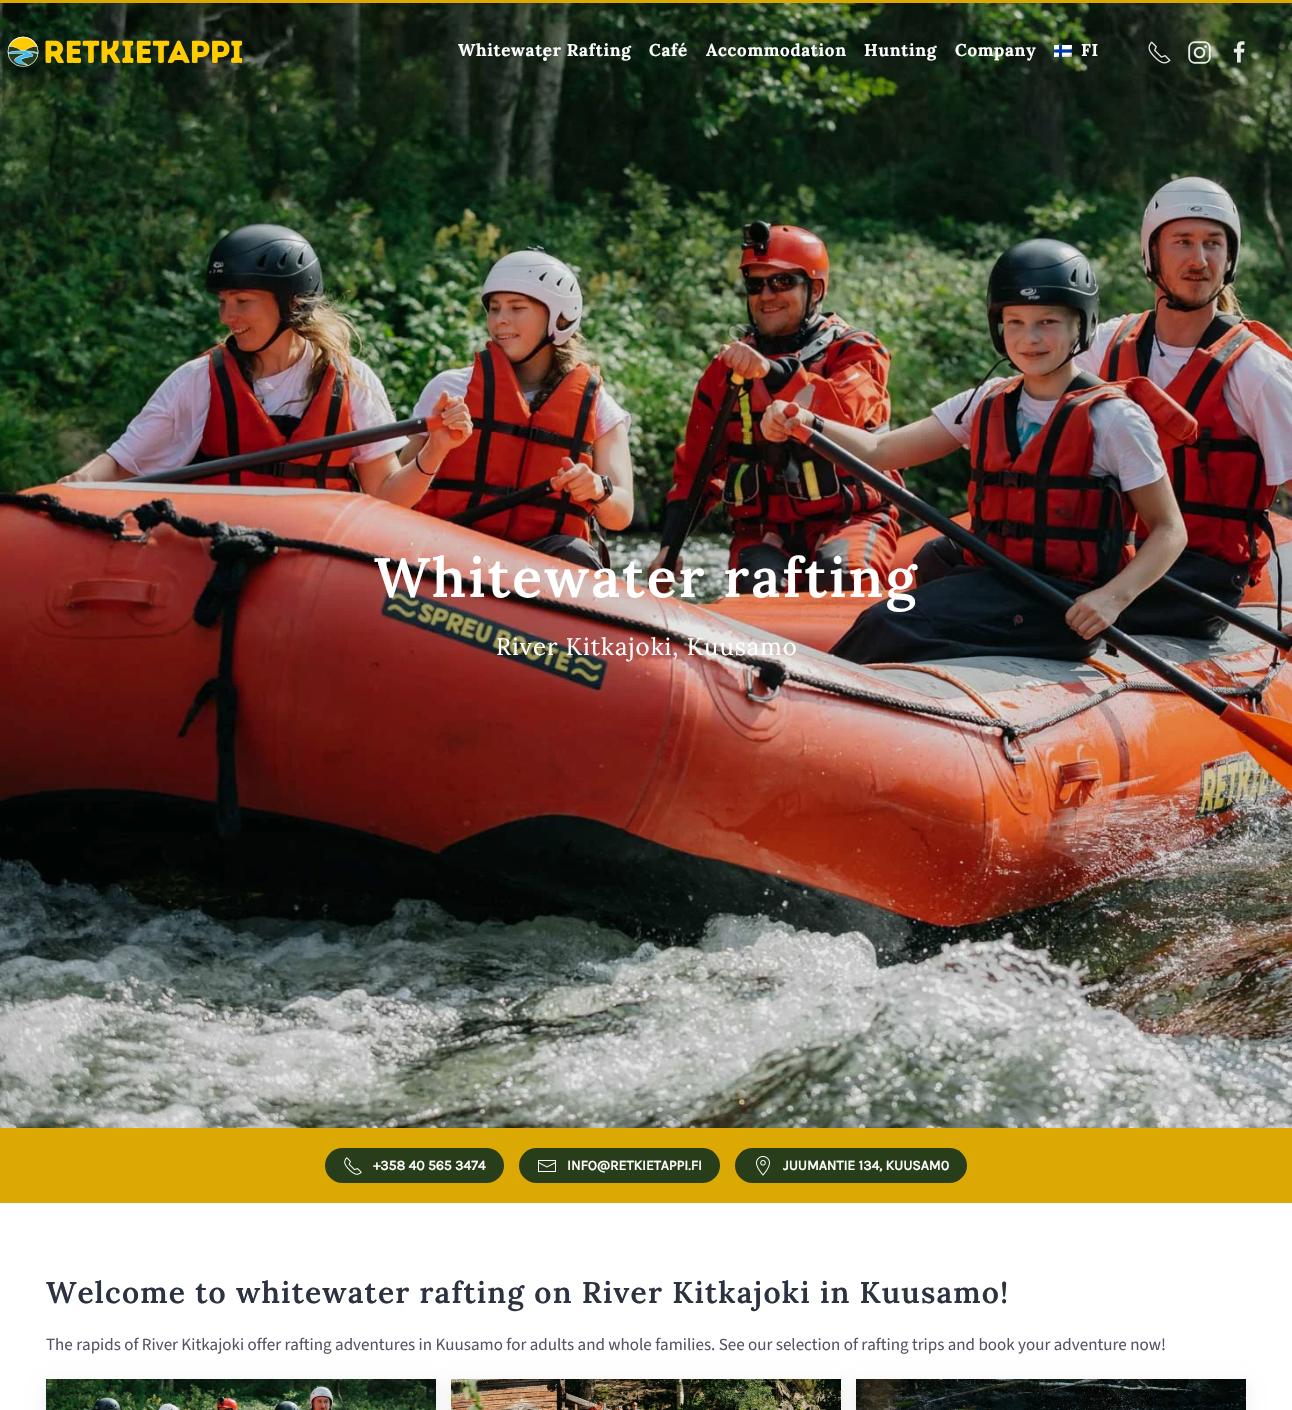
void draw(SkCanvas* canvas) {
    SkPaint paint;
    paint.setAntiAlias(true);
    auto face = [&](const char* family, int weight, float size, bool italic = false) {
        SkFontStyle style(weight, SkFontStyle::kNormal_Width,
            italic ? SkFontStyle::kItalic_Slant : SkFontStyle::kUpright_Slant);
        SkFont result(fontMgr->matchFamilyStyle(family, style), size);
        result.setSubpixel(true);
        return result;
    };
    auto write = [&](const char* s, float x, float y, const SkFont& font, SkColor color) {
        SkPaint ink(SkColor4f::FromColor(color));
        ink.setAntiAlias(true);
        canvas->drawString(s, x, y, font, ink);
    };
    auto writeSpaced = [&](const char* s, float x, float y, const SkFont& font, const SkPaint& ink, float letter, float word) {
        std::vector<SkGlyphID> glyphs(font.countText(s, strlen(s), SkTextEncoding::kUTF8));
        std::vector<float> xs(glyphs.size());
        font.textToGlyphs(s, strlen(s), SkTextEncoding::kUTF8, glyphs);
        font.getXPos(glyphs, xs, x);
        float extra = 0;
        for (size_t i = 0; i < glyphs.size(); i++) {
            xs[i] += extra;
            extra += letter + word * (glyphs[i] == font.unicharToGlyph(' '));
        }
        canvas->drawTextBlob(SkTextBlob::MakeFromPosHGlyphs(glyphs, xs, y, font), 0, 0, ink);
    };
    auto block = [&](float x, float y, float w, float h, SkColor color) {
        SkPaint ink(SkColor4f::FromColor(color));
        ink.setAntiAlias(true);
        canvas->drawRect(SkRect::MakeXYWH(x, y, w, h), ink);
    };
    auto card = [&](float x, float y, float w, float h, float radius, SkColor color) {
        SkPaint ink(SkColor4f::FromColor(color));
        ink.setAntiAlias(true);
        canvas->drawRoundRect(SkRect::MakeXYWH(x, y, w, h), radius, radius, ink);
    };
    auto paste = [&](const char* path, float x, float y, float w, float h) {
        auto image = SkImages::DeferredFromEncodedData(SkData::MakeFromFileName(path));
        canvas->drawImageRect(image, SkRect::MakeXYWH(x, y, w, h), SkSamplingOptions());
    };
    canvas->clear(SK_ColorWHITE);
    block(0, 0, 1292, 3, SkColorSetRGB(220, 168, 3));
    paste("pic6.png", 0, 3, 1292, 1125);
    paste("pic1.png", 7, 36, 236, 31);
    paint.setColor(SK_ColorWHITE);
    canvas->drawCircle(545, 59, 2, paint);
    auto kFont1 = face("Lora", 700, 17);
    writeSpaced("Whitewater Rafting", 458, 56, kFont1, paint, 0.7f, 0);
    writeSpaced("Café", 649, 56, kFont1, paint, 0.7f, 0);
    writeSpaced("Accommodation", 706, 56, kFont1, paint, 0.7f, 0);
    writeSpaced("Hunting", 864, 56, kFont1, paint, 0.7f, 0);
    writeSpaced("Company", 955, 56, kFont1, paint, 0.7f, 0);
    paste("pic2.png", 1054, 45, 18, 12);
    writeSpaced("FI", 1081, 56, kFont1, paint, 0.7f, 0);
    paste("pic3.png", 1148, 41, 23, 23);
    paste("pic4.png", 1188, 41, 23, 23);
    paste("pic5.png", 1233, 41, 12, 22);
    auto kFont2 = face("Lora", 600, 55.25f);
    writeSpaced("Whitewater rafting", 374, 597, kFont2, paint, 2.25f, 0);
    auto kFont3 = face("Lora", 400, 24);
    writeSpaced("River Kitkajoki, Kuusamo", 496, 655, kFont3, paint, 1, 0);
    block(0, 1128, 1292, 75, SkColorSetRGB(220, 168, 3));
    card(325, 1148, 179, 35, 17.5f, SkColorSetRGB(40, 61, 25));
    paste("pic7.png", 344, 1157, 18, 18);
    auto kFont4 = face("Karla", 700, 14);
    write("+358 40 565 3474", 373, 1170, kFont4, SK_ColorWHITE);
    card(519, 1148, 201, 35, 17.5f, SkColorSetRGB(40, 61, 25));
    paste("pic8.png", 538, 1160, 18, 12);
    write("INFO@RETKIETAPPI.FI", 567, 1170, kFont4, SK_ColorWHITE);
    card(735, 1148, 232, 35, 17.5f, SkColorSetRGB(40, 61, 25));
    paste("pic9.png", 756, 1156, 14, 20);
    write("JUUMANTIE 134, KUUSAM0", 783, 1170, kFont4, SK_ColorWHITE);
    auto kFont5 = face("Lora", 600, 30);
    paint.setColor(SkColorSetRGB(43, 50, 64));
    writeSpaced("Welcome to whitewater rafting on River Kitkajoki in Kuusamo!", 46, 1303, kFont5, paint, 1.2f, 0);
    auto kFont6 = face("Source Sans 3", 200, 17);
    write("The rapids of River Kitkajoki offer rafting adventures in Kuusamo for adults and whole families. See our selection of rafting trips and book your adventure now!", 46, 1350, kFont6, SkColorSetRGB(85, 85, 101));
    paint.setColor(SkColorSetARGB(20, 0, 0, 0));
    paint.setMaskFilter(SkMaskFilter::MakeBlur(kNormal_SkBlurStyle, 7.5f));
    canvas->drawRect(SkRect::MakeXYWH(46, 1384, 390, 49), paint);
    paint.setMaskFilter(nullptr);
    paste("pic10.png", 46, 1379, 390, 31);
    paint.setMaskFilter(SkMaskFilter::MakeBlur(kNormal_SkBlurStyle, 7.5f));
    canvas->drawRect(SkRect::MakeXYWH(451, 1384, 390, 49), paint);
    paint.setMaskFilter(nullptr);
    paste("pic11.png", 451, 1379, 390, 31);
    paint.setMaskFilter(SkMaskFilter::MakeBlur(kNormal_SkBlurStyle, 7.5f));
    canvas->drawRect(SkRect::MakeXYWH(856, 1384, 390, 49), paint);
    paint.setMaskFilter(nullptr);
    paste("pic12.png", 856, 1379, 390, 31);
}
